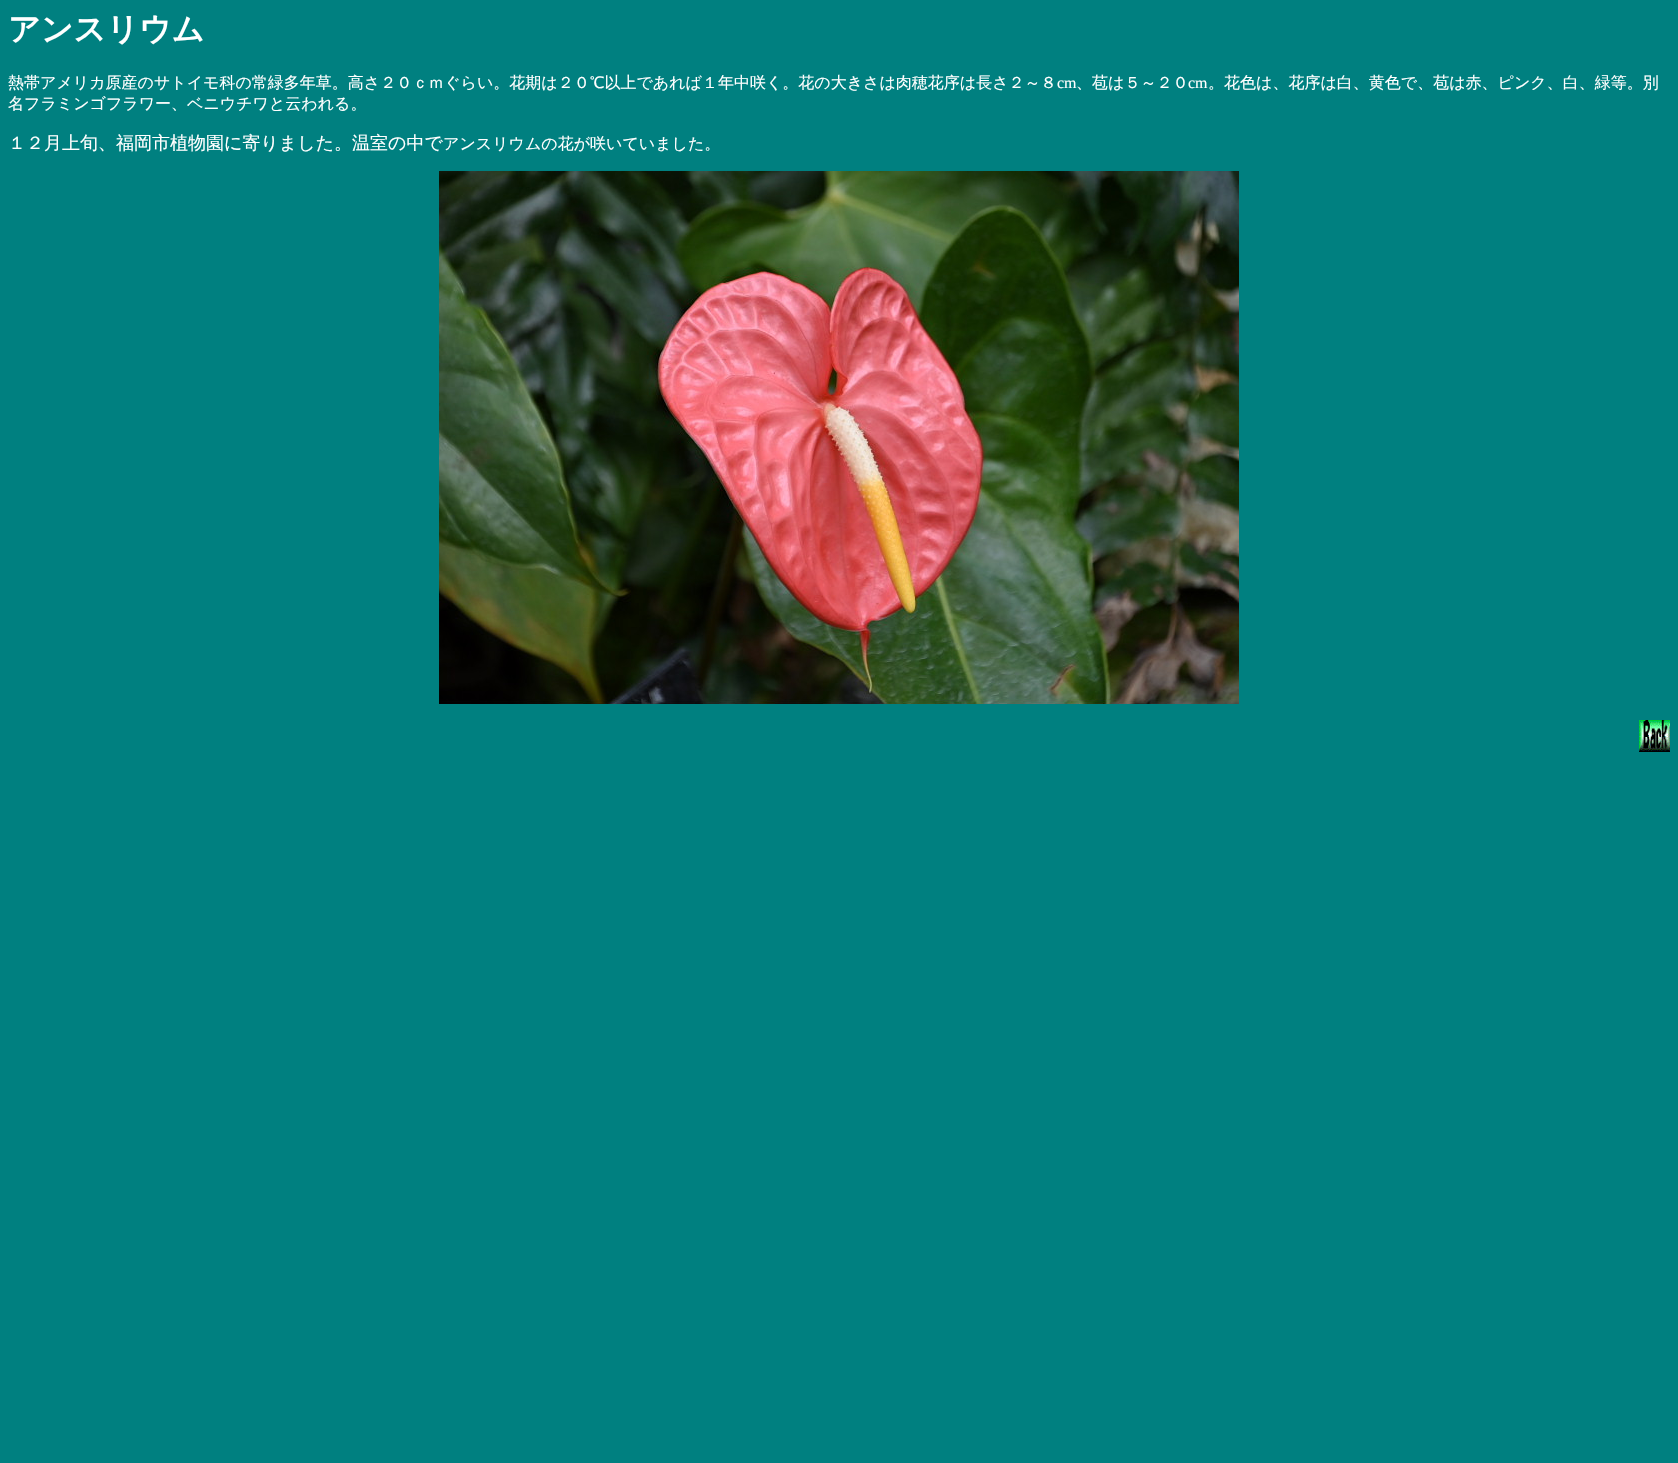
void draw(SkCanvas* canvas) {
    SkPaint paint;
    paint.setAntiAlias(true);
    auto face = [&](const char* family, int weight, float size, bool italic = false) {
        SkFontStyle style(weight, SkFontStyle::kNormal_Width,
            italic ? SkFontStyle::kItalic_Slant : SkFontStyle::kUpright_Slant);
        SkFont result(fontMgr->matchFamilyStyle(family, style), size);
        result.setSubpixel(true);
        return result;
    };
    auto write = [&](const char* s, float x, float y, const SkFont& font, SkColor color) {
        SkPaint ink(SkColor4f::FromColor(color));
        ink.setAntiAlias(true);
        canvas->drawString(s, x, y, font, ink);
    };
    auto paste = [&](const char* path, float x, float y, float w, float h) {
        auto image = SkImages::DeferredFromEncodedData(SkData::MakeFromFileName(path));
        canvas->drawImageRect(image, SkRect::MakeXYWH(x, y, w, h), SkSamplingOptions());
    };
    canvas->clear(SkColorSetRGB(0, 128, 128));
    auto kFont1 = face("WenQuanYi Zen Hei", 700, 32);
    write("アンスリウム", 8, 40, kFont1, SK_ColorWHITE);
    auto kFont2 = face("WenQuanYi Zen Hei", 500, 16);
    write("熱帯アメリカ原産のサトイモ科の常緑多年草。高さ２０ｃｍぐらい。花期は２０℃以上であれば１年中咲く。花の大きさは肉穂花序は長さ２～８", 8, 88, kFont2, SK_ColorWHITE);
    auto kFont3 = face("Liberation Serif", 400, 16);
    write("cm", 1057, 88, kFont3, SK_ColorWHITE);
    write("、苞は５～２０", 1076, 88, kFont2, SK_ColorWHITE);
    write("cm", 1188, 88, kFont3, SK_ColorWHITE);
    write("。花色は、花序は白、黄色で、苞は赤、ピンク、白、緑等。別", 1208, 88, kFont2, SK_ColorWHITE);
    write("名フラミンゴフラワー、ベニウチワと云われる。", 8, 109, kFont2, SK_ColorWHITE);
    auto kFont4 = face("WenQuanYi Zen Hei", 500, 18);
    write("１２月上旬、福岡市植物園に寄りました。温室の中で", 8, 149, kFont4, SK_ColorWHITE);
    write("アンスリウムの花が咲いていました。", 443, 149, kFont2, SK_ColorWHITE);
    paste("pic1.png", 439, 171, 800, 533);
    paste("pic2.png", 1639, 720, 31, 32);
}
